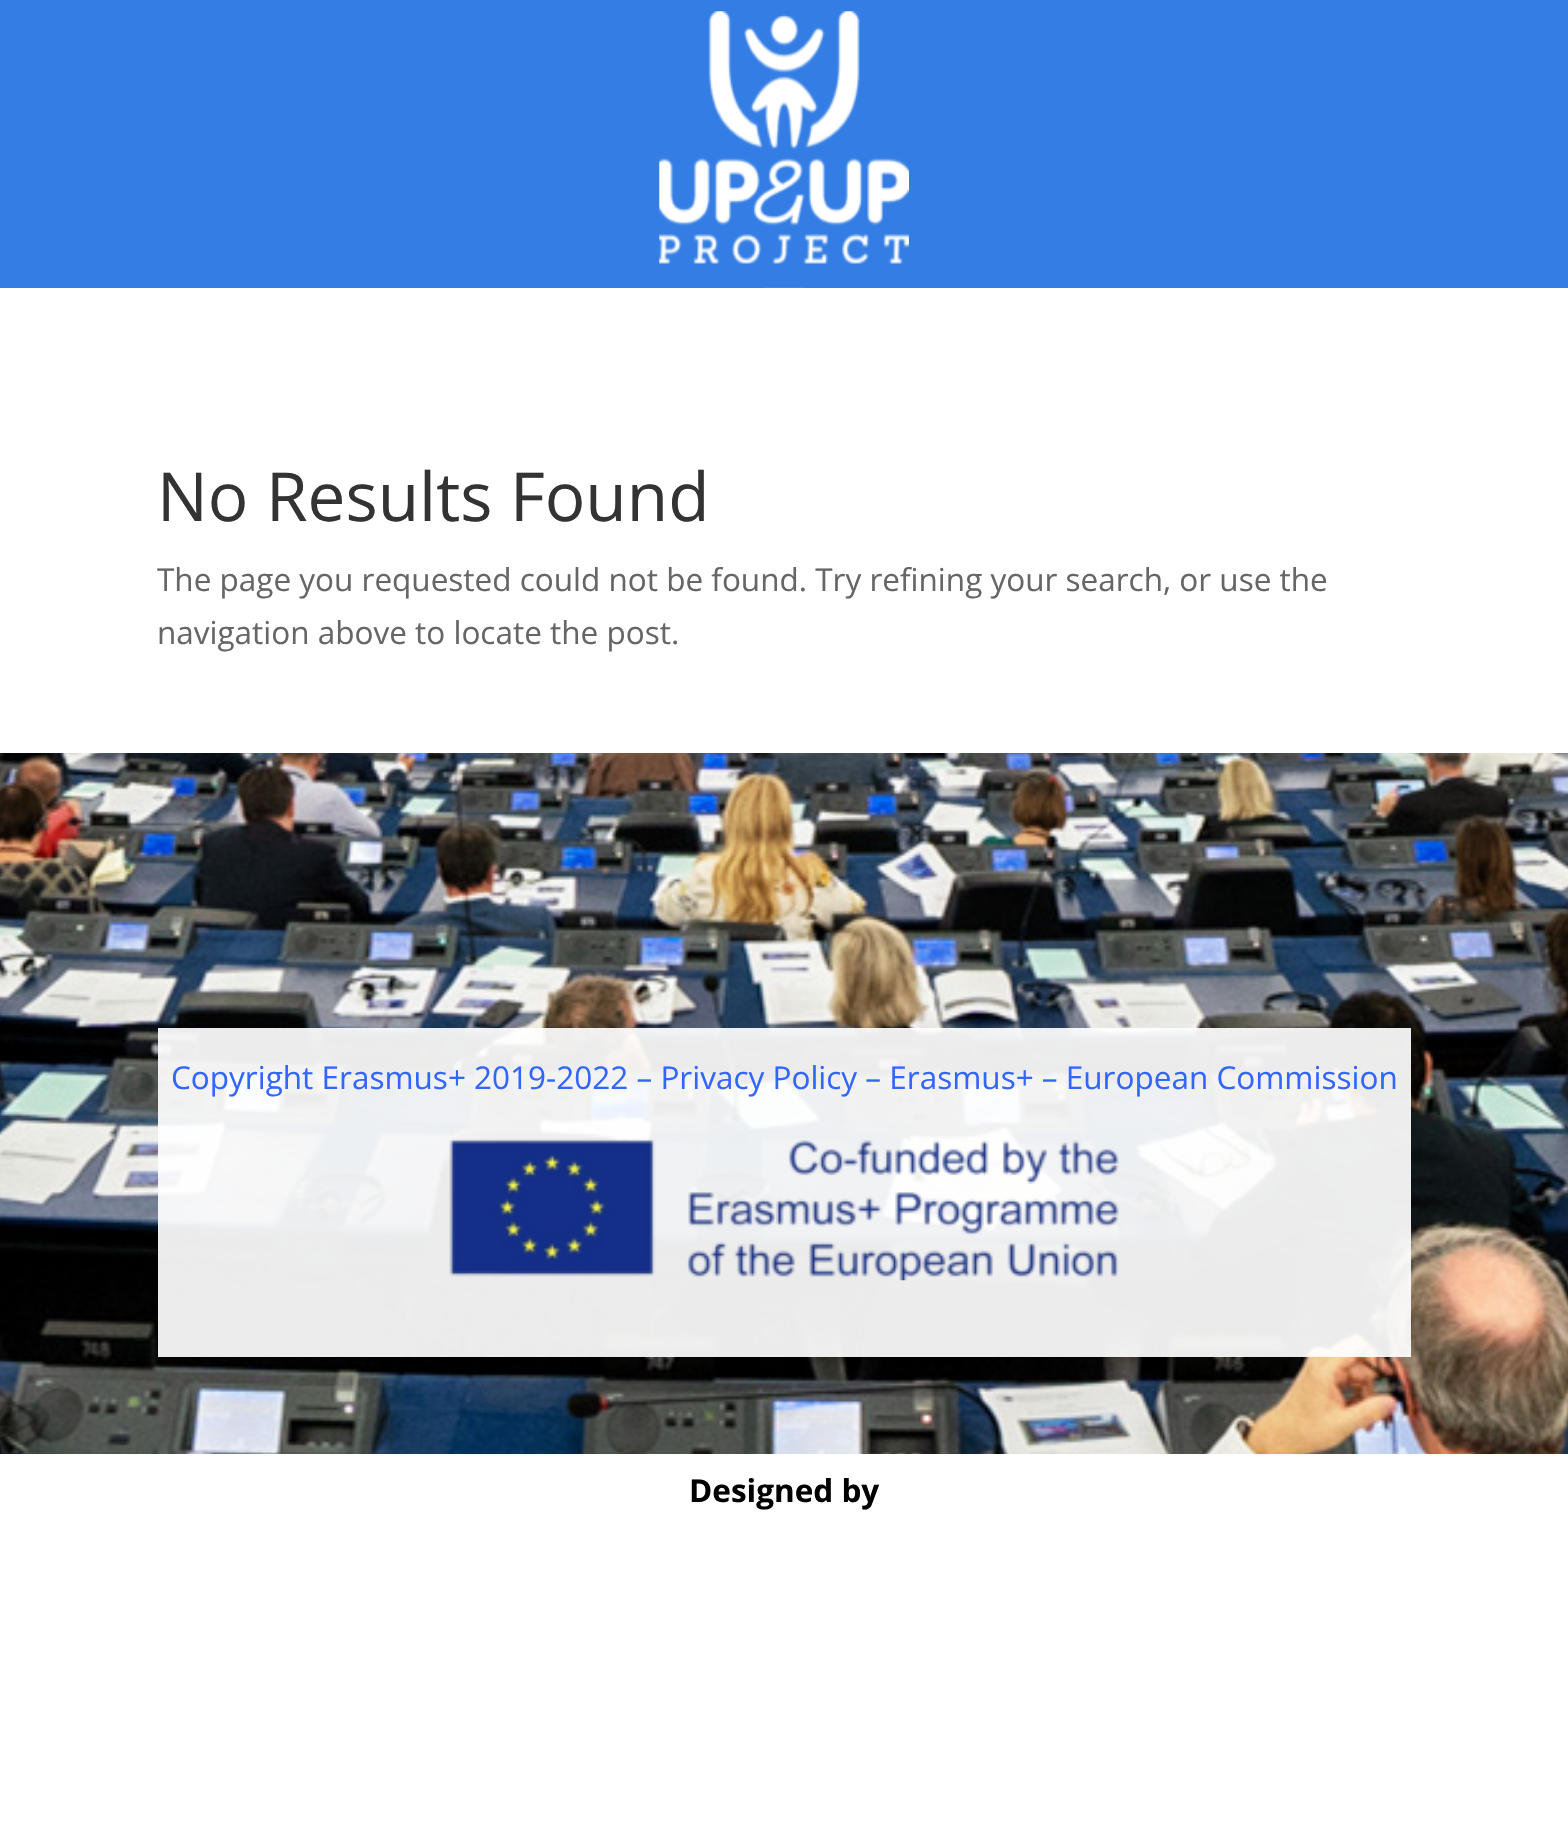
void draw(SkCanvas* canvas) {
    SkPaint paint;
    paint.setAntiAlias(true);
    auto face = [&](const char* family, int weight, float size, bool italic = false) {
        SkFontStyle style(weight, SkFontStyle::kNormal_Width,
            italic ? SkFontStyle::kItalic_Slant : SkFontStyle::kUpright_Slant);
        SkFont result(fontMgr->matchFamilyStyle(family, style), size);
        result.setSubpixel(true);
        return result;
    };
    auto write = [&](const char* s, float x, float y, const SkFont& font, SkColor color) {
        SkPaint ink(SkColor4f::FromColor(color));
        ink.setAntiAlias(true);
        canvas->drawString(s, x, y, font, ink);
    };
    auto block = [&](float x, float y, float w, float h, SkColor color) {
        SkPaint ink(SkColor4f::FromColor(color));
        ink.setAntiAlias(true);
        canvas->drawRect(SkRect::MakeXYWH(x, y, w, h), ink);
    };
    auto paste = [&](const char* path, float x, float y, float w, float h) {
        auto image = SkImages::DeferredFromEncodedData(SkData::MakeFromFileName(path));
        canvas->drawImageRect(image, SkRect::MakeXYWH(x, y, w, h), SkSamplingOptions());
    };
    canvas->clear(SK_ColorWHITE);
    block(0, 0, 1568, 288, SkColorSetRGB(51, 125, 228));
    paste("pic1.png", 659, 11, 250, 253);
    paste("pic2.png", 765, 287, 41, 1);
    auto kFont1 = face("Open Sans", 400, 67.5f);
    write("No Results Found", 157, 521, kFont1, SkColorSetRGB(51, 51, 51));
    auto kFont2 = face("Open Sans", 400, 31.5f);
    write("The page you requested could not be found. Try refining your search, or use the", 157, 591, kFont2, SkColorSetRGB(102, 102, 102));
    write("navigation above to locate the post.", 157, 644, kFont2, SkColorSetRGB(102, 102, 102));
    paste("pic3.png", 0, 753, 1568, 701);
    block(158, 1028, 1253, 329, SkColorSetARGB(235, 255, 255, 255));
    write("Copyright Erasmus+ 2019-2022 – Privacy Policy – Erasmus+ – European Commission", 171, 1089, kFont2, SkColorSetRGB(51, 102, 255));
    paste("pic4.png", 449, 1138, 670, 143);
    auto kFont3 = face("Open Sans", 700, 31.5f);
    write("Designed by", 689, 1502, kFont3, SK_ColorBLACK);
}
